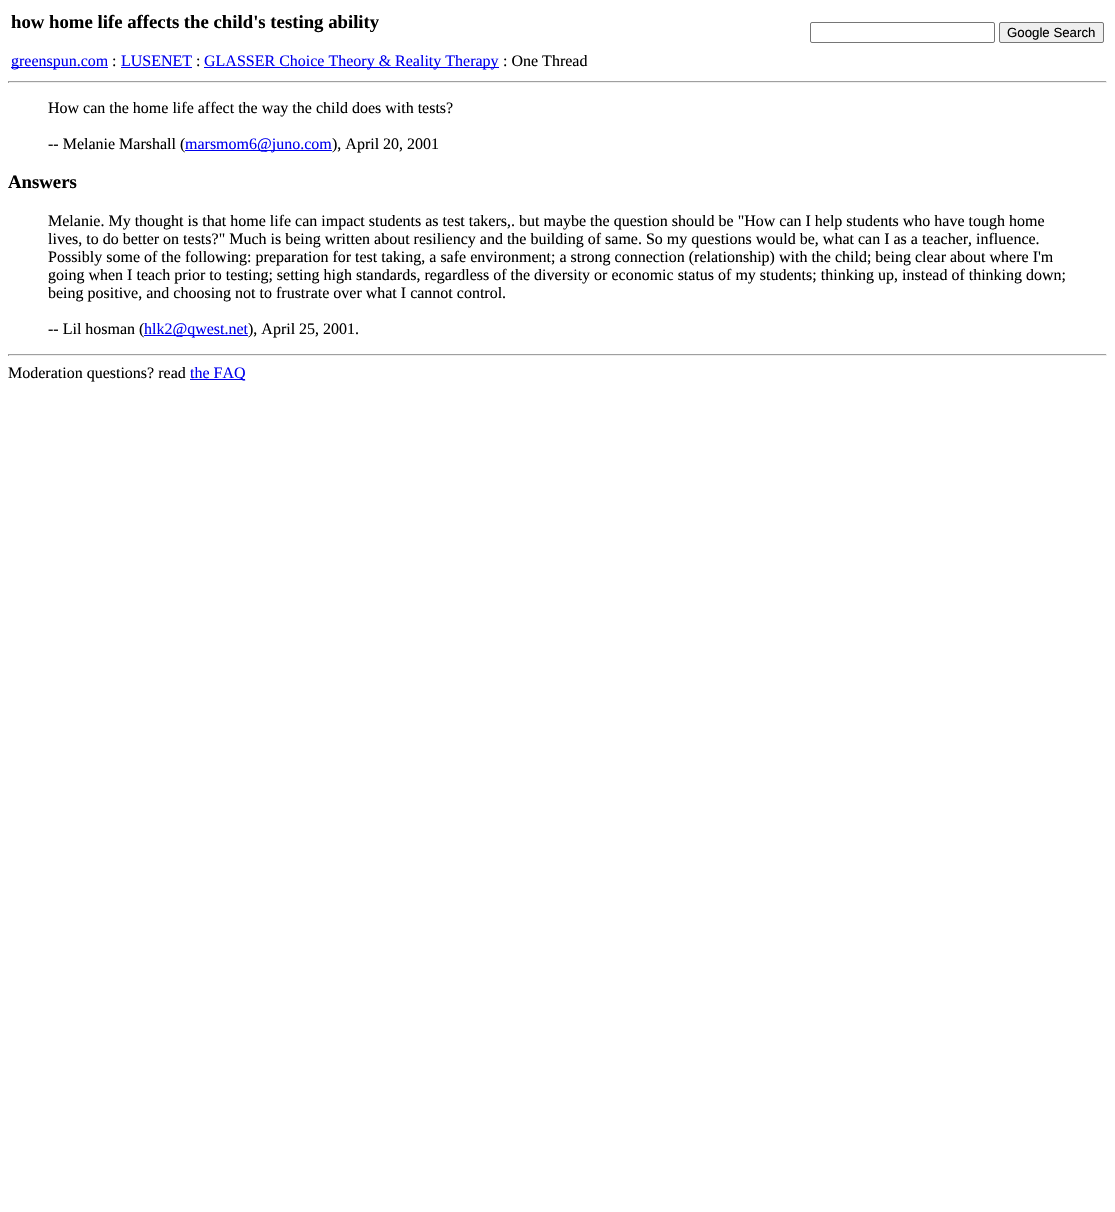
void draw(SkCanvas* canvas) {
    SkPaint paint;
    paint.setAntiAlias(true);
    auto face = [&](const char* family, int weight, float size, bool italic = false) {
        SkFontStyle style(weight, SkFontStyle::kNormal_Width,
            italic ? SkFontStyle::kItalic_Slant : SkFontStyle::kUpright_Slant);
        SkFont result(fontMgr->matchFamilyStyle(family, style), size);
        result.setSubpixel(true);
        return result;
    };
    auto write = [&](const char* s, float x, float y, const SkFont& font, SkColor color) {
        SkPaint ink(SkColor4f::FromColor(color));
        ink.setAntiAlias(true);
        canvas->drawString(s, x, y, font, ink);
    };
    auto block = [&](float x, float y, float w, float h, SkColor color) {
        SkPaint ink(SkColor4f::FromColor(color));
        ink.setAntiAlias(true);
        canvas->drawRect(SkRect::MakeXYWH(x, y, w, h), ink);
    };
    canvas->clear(SK_ColorWHITE);
    auto kFont1 = face("Liberation Serif", 700, 18.75f);
    write("how home life affects the child's testing ability", 11, 28, kFont1, SK_ColorBLACK);
    block(11, 67, 97, 1, SkColorSetRGB(0, 0, 238));
    auto kFont2 = face("Liberation Serif", 400, 16);
    write("greenspun.com", 11, 66, kFont2, SkColorSetRGB(0, 0, 238));
    write(":", 112, 66, kFont2, SK_ColorBLACK);
    write("LUSENET", 121, 66, kFont2, SkColorSetRGB(0, 0, 238));
    block(121, 67, 71, 1, SkColorSetRGB(0, 0, 238));
    write(":", 196, 66, kFont2, SK_ColorBLACK);
    block(204, 67, 295, 1, SkColorSetRGB(0, 0, 238));
    write("GLASSER Choice Theory & Reality Therapy", 204, 66, kFont2, SkColorSetRGB(0, 0, 238));
    write(": One Thread", 503, 66, kFont2, SK_ColorBLACK);
    paint.setStyle(SkPaint::kStroke_Style);
    paint.setStrokeWidth(1);
    paint.setColor(SkColorSetRGB(118, 118, 118));
    canvas->drawRoundRect(SkRect::MakeXYWH(810.5f, 22.5f, 184, 20), 1.5f, 1.5f, paint);
    paint.setStyle(SkPaint::kFill_Style);
    paint.setColor(SkColorSetRGB(239, 239, 239));
    canvas->drawRoundRect(SkRect::MakeXYWH(999.5f, 22.5f, 104, 20), 1.5f, 1.5f, paint);
    paint.setStyle(SkPaint::kStroke_Style);
    paint.setColor(SkColorSetRGB(118, 118, 118));
    canvas->drawRoundRect(SkRect::MakeXYWH(999.5f, 22.5f, 104, 20), 1.5f, 1.5f, paint);
    auto kFont3 = face("Liberation Sans", 400, 13.25f);
    write("Google Search", 1007, 37, kFont3, SK_ColorBLACK);
    block(8, 81, 1099, 1, SkColorSetRGB(159, 159, 159));
    block(1106, 81, 1, 2, SkColorSetRGB(238, 238, 238));
    block(8, 82, 1099, 1, SkColorSetRGB(238, 238, 238));
    block(8, 81, 1, 2, SkColorSetRGB(159, 159, 159));
    write("How can the home life affect the way the child does with tests?", 48, 113, kFont2, SK_ColorBLACK);
    write("-- Melanie Marshall (", 48, 149, kFont2, SK_ColorBLACK);
    block(185, 150, 147, 1, SkColorSetRGB(0, 0, 238));
    write("marsmom6@juno.com", 185, 149, kFont2, SkColorSetRGB(0, 0, 238));
    write("), April 20, 2001", 332, 149, kFont2, SK_ColorBLACK);
    write("Answers", 8, 188, kFont1, SK_ColorBLACK);
    write("Melanie. My thought is that home life can impact students as test takers,. but maybe the question should be \"How can I help students who have tough home", 48, 226, kFont2, SK_ColorBLACK);
    write("lives, to do better on tests?\" Much is being written about resiliency and the building of same. So my questions would be, what can I as a teacher, influence.", 48, 244, kFont2, SK_ColorBLACK);
    write("Possibly some of the following: preparation for test taking, a safe environment; a strong connection (relationship) with the child; being clear about where I'm", 48, 262, kFont2, SK_ColorBLACK);
    write("going when I teach prior to testing; setting high standards, regardless of the diversity or economic status of my students; thinking up, instead of thinking down;", 48, 280, kFont2, SK_ColorBLACK);
    write("being positive, and choosing not to frustrate over what I cannot control.", 48, 298, kFont2, SK_ColorBLACK);
    write("-- Lil hosman (", 48, 334, kFont2, SK_ColorBLACK);
    block(144, 335, 104, 1, SkColorSetRGB(0, 0, 238));
    write("hlk2@qwest.net", 144, 334, kFont2, SkColorSetRGB(0, 0, 238));
    write("), April 25, 2001.", 248, 334, kFont2, SK_ColorBLACK);
    block(8, 354, 1099, 1, SkColorSetRGB(159, 159, 159));
    block(1106, 354, 1, 2, SkColorSetRGB(238, 238, 238));
    block(8, 355, 1099, 1, SkColorSetRGB(238, 238, 238));
    block(8, 354, 1, 2, SkColorSetRGB(159, 159, 159));
    write("Moderation questions? read", 8, 378, kFont2, SK_ColorBLACK);
    block(190, 379, 55, 1, SkColorSetRGB(0, 0, 238));
    write("the FAQ", 190, 378, kFont2, SkColorSetRGB(0, 0, 238));
}
